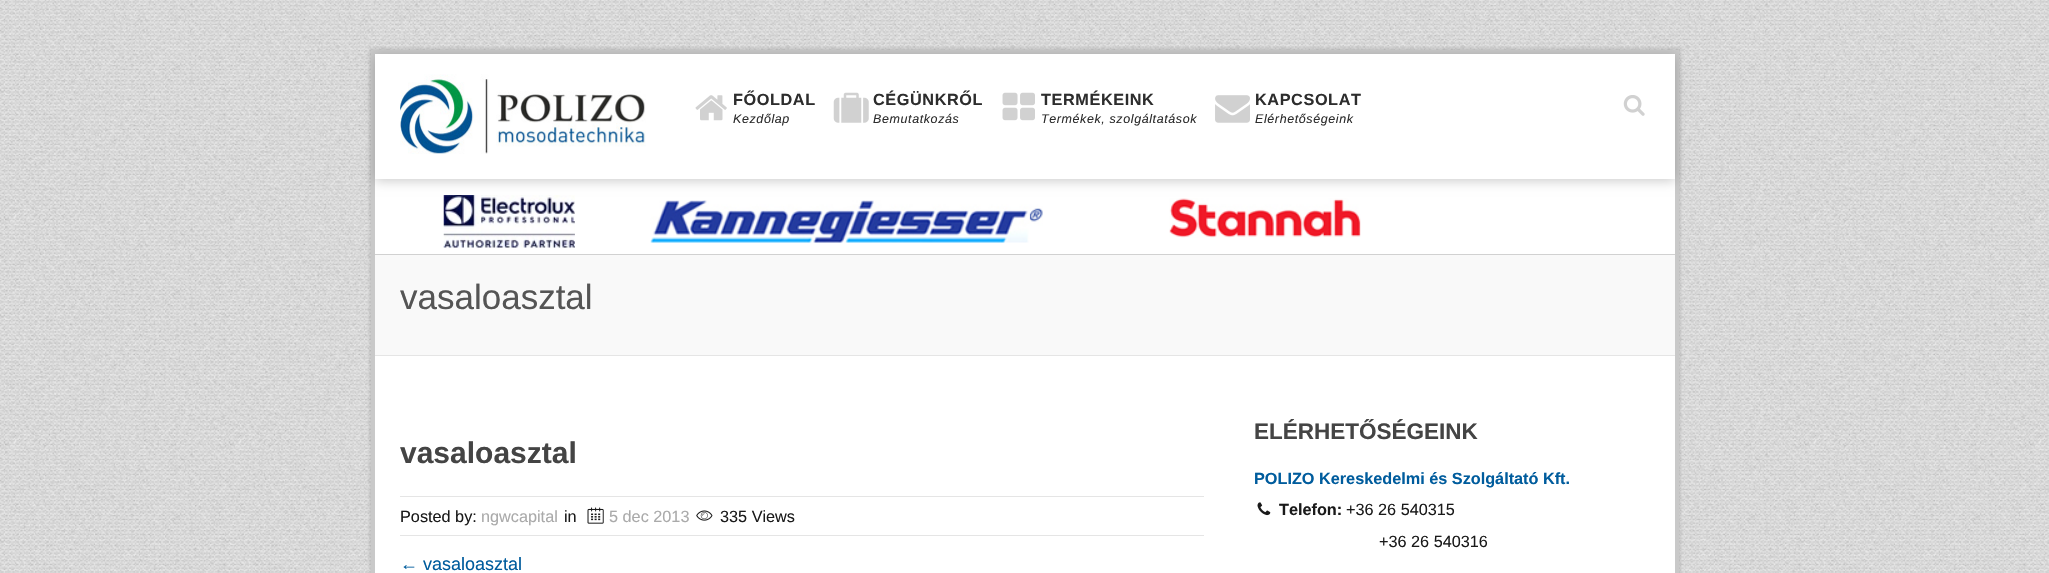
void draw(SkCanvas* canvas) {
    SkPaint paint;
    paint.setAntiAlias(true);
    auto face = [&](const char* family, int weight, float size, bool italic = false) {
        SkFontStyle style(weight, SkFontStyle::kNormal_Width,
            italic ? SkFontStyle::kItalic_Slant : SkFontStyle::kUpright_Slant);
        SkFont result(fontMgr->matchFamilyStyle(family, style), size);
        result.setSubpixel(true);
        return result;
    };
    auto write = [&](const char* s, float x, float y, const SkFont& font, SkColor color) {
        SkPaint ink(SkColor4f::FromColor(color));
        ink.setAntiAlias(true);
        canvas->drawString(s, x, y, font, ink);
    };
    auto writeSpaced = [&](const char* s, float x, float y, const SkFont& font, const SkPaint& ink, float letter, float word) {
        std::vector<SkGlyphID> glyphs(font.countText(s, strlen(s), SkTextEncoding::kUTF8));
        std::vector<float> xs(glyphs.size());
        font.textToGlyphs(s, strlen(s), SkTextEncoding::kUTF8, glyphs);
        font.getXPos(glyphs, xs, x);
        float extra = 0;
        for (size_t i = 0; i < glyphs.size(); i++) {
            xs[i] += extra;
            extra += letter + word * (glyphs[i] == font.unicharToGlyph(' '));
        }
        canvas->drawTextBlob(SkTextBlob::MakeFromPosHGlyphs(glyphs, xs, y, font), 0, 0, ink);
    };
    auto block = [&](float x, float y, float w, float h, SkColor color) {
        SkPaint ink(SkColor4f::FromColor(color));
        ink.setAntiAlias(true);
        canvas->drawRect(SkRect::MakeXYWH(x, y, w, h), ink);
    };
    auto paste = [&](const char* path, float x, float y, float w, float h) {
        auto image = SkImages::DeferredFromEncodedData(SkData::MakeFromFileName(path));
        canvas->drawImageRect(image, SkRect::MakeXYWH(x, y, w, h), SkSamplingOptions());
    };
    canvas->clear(SK_ColorWHITE);
    paste("pic1.png", 0, 0, 2049, 573);
    paint.setColor(SkColorSetARGB(77, 153, 151, 153));
    paint.setMaskFilter(SkMaskFilter::MakeBlur(kNormal_SkBlurStyle, 1));
    canvas->drawRect(SkRect::MakeXYWH(369, 48, 1312, 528), paint);
    paint.setMaskFilter(nullptr);
    block(375, 179, 1300, 394, SK_ColorWHITE);
    paint.setStyle(SkPaint::kStroke_Style);
    paint.setStrokeWidth(4);
    paint.setColor(SkColorSetRGB(201, 201, 201));
    canvas->drawRect(SkRect::MakeXYWH(373, 52, 1304, 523), paint);
    paste("pic8.png", 443, 195, 132, 53);
    paste("pic10.png", 1169, 198, 192, 40);
    paint.setStyle(SkPaint::kFill_Style);
    paint.setColor(SkColorSetARGB(51, 0, 0, 0));
    paint.setMaskFilter(SkMaskFilter::MakeBlur(kNormal_SkBlurStyle, 5.5f));
    canvas->drawRect(SkRect::MakeXYWH(375, 56, 1300, 125), paint);
    paint.setMaskFilter(nullptr);
    block(375, 54, 1300, 125, SK_ColorWHITE);
    paste("pic2.png", 400, 74, 246, 80);
    paste("pic3.png", 695, 95, 32, 26);
    auto kFont1 = face("Liberation Sans", 700, 16.25f);
    paint.setColor(SkColorSetRGB(45, 45, 45));
    writeSpaced("FŐOLDAL", 733, 105, kFont1, paint, 0.6f, 0);
    auto kFont2 = face("Liberation Sans", 400, 12.5f, true);
    writeSpaced("Kezdőlap", 733, 123, kFont2, paint, 0.6f, 0);
    paste("pic4.png", 833, 92, 36, 31);
    writeSpaced("CÉGÜNKRŐL", 873, 105, kFont1, paint, 0.6f, 0);
    writeSpaced("Bemutatkozás", 873, 123, kFont2, paint, 0.6f, 0);
    paste("pic5.png", 1002, 92, 33, 29);
    writeSpaced("TERMÉKEINK", 1041, 105, kFont1, paint, 0.6f, 0);
    writeSpaced("Termékek, szolgáltatások", 1041, 123, kFont2, paint, 0.6f, 0);
    paste("pic6.png", 1215, 95, 35, 28);
    writeSpaced("KAPCSOLAT", 1255, 105, kFont1, paint, 0.6f, 0);
    writeSpaced("Elérhetőségeink", 1255, 123, kFont2, paint, 0.6f, 0);
    paste("pic7.png", 1623, 95, 22, 21);
    paste("pic9.png", 650, 200, 393, 43);
    block(375, 254, 1300, 1, SkColorSetRGB(209, 209, 209));
    block(375, 255, 1300, 100, SkColorSetRGB(249, 249, 249));
    block(375, 355, 1300, 1, SkColorSetRGB(229, 229, 229));
    auto kFont3 = face("Liberation Sans", 400, 35);
    write("vasaloasztal", 400, 309, kFont3, SkColorSetRGB(85, 85, 85));
    auto kFont4 = face("Liberation Sans", 700, 30);
    write("vasaloasztal", 400, 463, kFont4, SkColorSetRGB(68, 68, 68));
    block(400, 496, 804, 1, SkColorSetRGB(229, 229, 229));
    block(400, 535, 804, 1, SkColorSetRGB(229, 229, 229));
    auto kFont5 = face("Liberation Sans", 400, 16.25f);
    write("Posted by:", 400, 522, kFont5, SkColorSetRGB(26, 26, 26));
    write("ngwcapital", 481, 522, kFont5, SkColorSetRGB(170, 170, 170));
    write("in", 564, 522, kFont5, SkColorSetRGB(26, 26, 26));
    paste("pic11.png", 587, 507, 17, 17);
    write("5 dec 2013", 609, 522, kFont5, SkColorSetRGB(170, 170, 170));
    paste("pic12.png", 696, 510, 17, 11);
    write("335 Views", 720, 522, kFont5, SkColorSetRGB(26, 26, 26));
    auto kFont6 = face("Liberation Sans", 400, 18);
    write("← vasaloasztal", 400, 570, kFont6, SkColorSetRGB(0, 92, 157));
    auto kFont7 = face("Liberation Sans", 700, 22.5f);
    write("ELÉRHETŐSÉGEINK", 1254, 439, kFont7, SkColorSetRGB(68, 68, 68));
    write("POLIZO Kereskedelmi és Szolgáltató Kft.", 1254, 484, kFont1, SkColorSetRGB(0, 92, 157));
    paste("pic13.png", 1257, 502, 14, 14);
    write("Telefon:", 1279, 515, kFont1, SkColorSetRGB(26, 26, 26));
    write("+36 26 540315", 1346, 515, kFont5, SkColorSetRGB(26, 26, 26));
    write("+36 26 540316", 1379, 547, kFont5, SkColorSetRGB(26, 26, 26));
}
